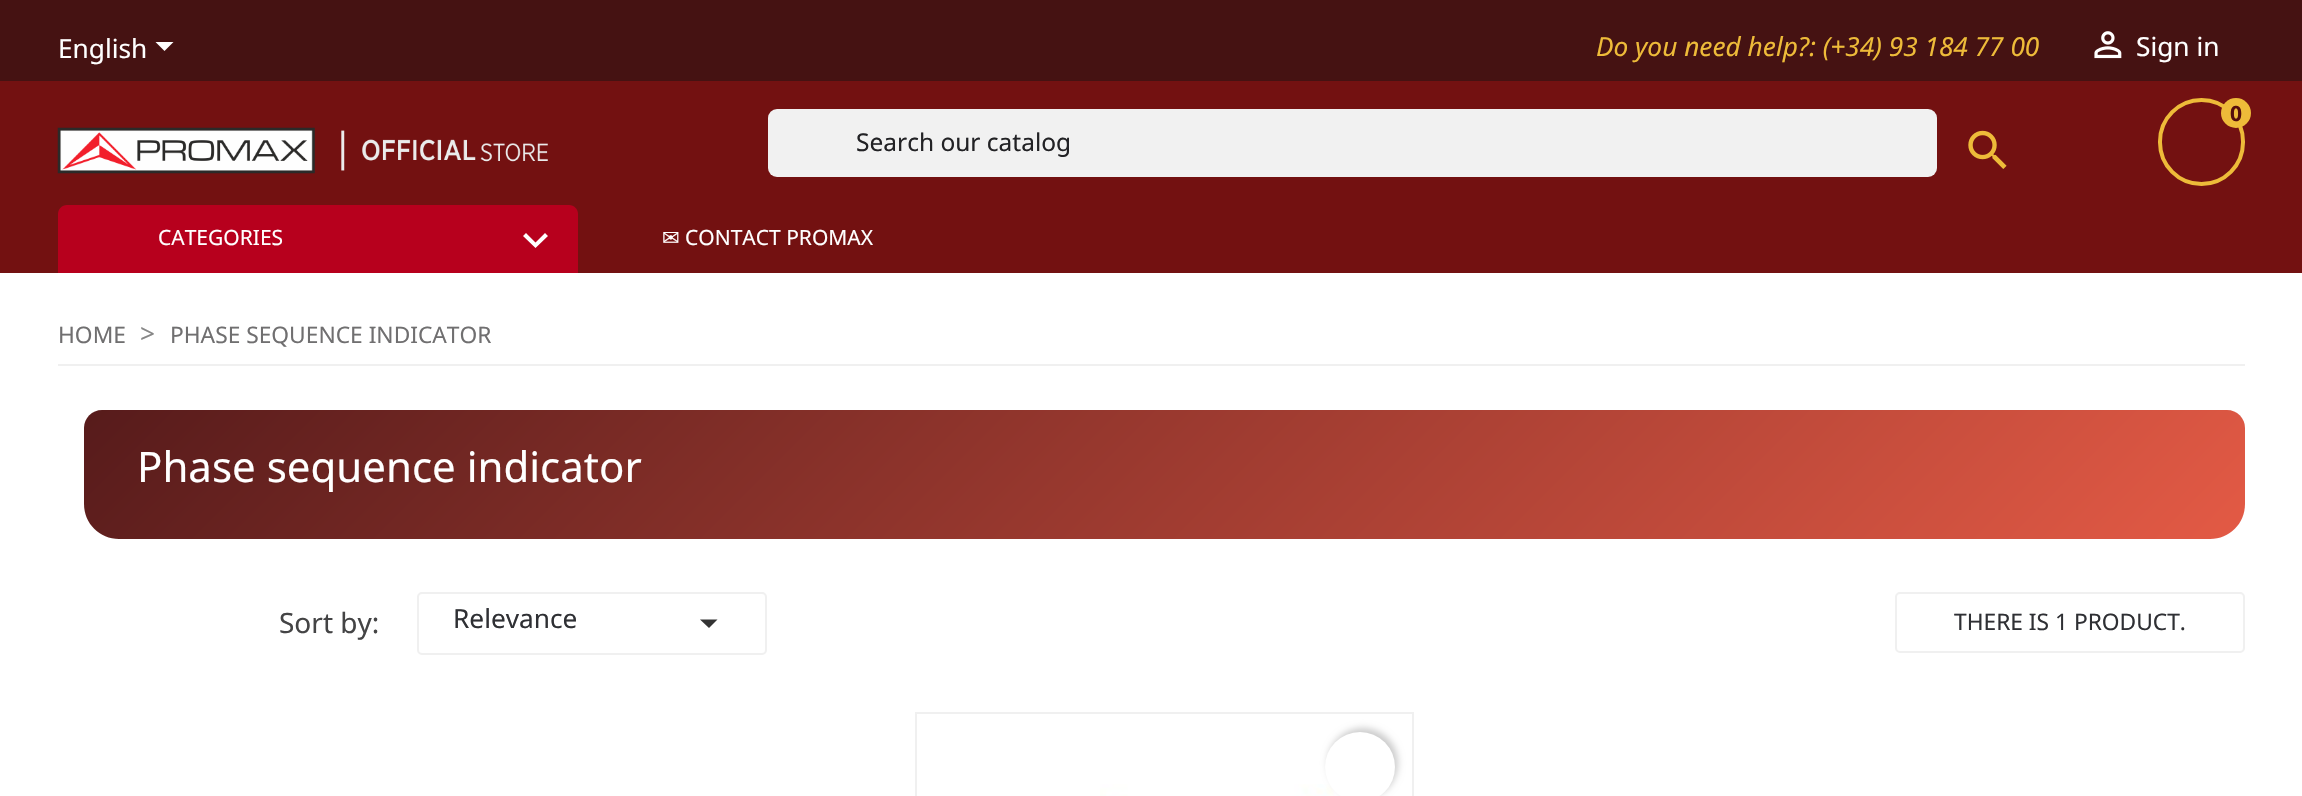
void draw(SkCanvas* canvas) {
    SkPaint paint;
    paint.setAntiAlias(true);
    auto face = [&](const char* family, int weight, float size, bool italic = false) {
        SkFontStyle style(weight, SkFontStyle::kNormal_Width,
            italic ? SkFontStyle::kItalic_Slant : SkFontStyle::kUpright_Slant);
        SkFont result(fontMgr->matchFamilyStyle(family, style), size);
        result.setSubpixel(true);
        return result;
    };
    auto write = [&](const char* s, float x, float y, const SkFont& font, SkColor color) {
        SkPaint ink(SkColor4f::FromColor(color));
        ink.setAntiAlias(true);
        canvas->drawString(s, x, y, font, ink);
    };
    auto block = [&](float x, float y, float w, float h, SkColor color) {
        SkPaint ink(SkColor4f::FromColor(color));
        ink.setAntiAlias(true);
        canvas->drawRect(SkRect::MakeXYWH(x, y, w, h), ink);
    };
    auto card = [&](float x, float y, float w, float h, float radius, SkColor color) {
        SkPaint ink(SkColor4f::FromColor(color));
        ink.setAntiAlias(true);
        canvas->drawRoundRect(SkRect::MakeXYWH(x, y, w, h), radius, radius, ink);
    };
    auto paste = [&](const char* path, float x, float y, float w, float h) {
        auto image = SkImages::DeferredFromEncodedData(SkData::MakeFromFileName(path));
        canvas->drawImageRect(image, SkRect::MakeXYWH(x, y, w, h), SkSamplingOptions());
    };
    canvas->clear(SK_ColorWHITE);
    block(0, 81, 2302, 192, SkColorSetRGB(115, 17, 17));
    block(0, 0, 2302, 81, SkColorSetRGB(69, 18, 18));
    auto kFont1 = face("Noto Sans", 400, 26.25f);
    write("English", 58, 58, kFont1, SK_ColorWHITE);
    paint.setColor(SK_ColorWHITE);
    canvas->drawPath(SkPathBuilder().moveTo(155.5f, 42).lineTo(173.5f, 42).lineTo(164.5f, 51).close().detach(), paint);
    auto kFont2 = face("Noto Sans", 400, 26.25f, true);
    write("Do you need help?: (+34) 93 184 77 00", 1596, 56, kFont2, SkColorSetRGB(238, 187, 57));
    paste("pic1.png", 2094, 31, 28, 28);
    write("Sign in", 2136, 56, kFont1, SK_ColorWHITE);
    paint.setStyle(SkPaint::kStroke_Style);
    paint.setStrokeWidth(4);
    paint.setColor(SkColorSetRGB(238, 187, 57));
    canvas->drawRoundRect(SkRect::MakeXYWH(2160, 100, 83, 84), 41.5f, 41.5f, paint);
    paint.setStyle(SkPaint::kFill_Style);
    canvas->drawCircle(2236, 113, 15, paint);
    auto kFont3 = face("Noto Sans", 700, 21);
    write("0", 2230, 121, kFont3, SkColorSetRGB(84, 13, 13));
    paste("pic2.png", 57, 127, 491, 47);
    card(768, 109, 1169, 68, 9, SkColorSetRGB(241, 241, 241));
    auto kFont4 = face("Noto Sans", 400, 24.5f);
    write("Search our catalog", 856, 151, kFont4, SkColorSetRGB(34, 34, 37));
    paste("pic3.png", 1968, 130, 39, 39);
    paint.setColor(SkColorSetRGB(183, 0, 29));
    canvas->drawPath(SkPathBuilder().moveTo(67, 205).lineTo(569, 205).cubicTo(574, 205, 578, 209, 578, 214).lineTo(578, 273).lineTo(58, 273).lineTo(58, 214).cubicTo(58, 209, 62, 205, 67, 205).close().detach(), paint);
    auto kFont5 = face("Noto Sans", 400, 21);
    write("CATEGORIES", 158, 245, kFont5, SK_ColorWHITE);
    paint.setColor(SK_ColorWHITE);
    canvas->drawPath(SkPathBuilder().moveTo(526, 233).lineTo(535.5f, 242.5f).lineTo(545, 233).lineTo(548, 236).lineTo(535.5f, 248).lineTo(523, 236).close().detach(), paint);
    auto kFont6 = face("DejaVu Sans", 400, 21);
    write("✉", 662, 245, kFont6, SK_ColorWHITE);
    write("CONTACT PROMAX", 685, 245, kFont5, SK_ColorWHITE);
    block(58, 364, 2187, 2, SkColorSetRGB(240, 240, 240));
    auto kFont7 = face("Noto Sans", 400, 22.75f);
    write("HOME", 58, 343, kFont7, SkColorSetRGB(112, 111, 112));
    write(">", 140, 343, kFont1, SkColorSetRGB(135, 135, 135));
    write("PHASE SEQUENCE INDICATOR", 170, 343, kFont7, SkColorSetRGB(112, 111, 112));
    {
        const SkColor colors[] = {SkColorSetRGB(87, 27, 27), SkColorSetRGB(227, 90, 69)};
        const float stops[] = {0, 1};
        const SkPoint ends[] = {{592, -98}, {1737, 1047}};
        paint.setShader(SkGradientShader::MakeLinear(ends, colors, stops, 2, SkTileMode::kClamp));
        paint.setAlpha(255);
    }
    canvas->drawPath(SkPathBuilder().moveTo(102, 410).lineTo(2227, 410).cubicTo(2237, 410, 2245, 418, 2245, 428).lineTo(2245, 504).cubicTo(2245, 523.5f, 2229.5f, 539, 2210, 539).lineTo(119, 539).cubicTo(99.5f, 539, 84, 523.5f, 84, 504).lineTo(84, 428).cubicTo(84, 418, 92, 410, 102, 410).close().detach(), paint);
    auto kFont8 = face("Noto Sans", 400, 42);
    write("Phase sequence indicator", 137, 482, kFont8, SK_ColorWHITE);
    auto kFont9 = face("Noto Sans", 400, 28);
    write("Sort by:", 279, 633, kFont9, SkColorSetRGB(68, 68, 69));
    paint.setStyle(SkPaint::kStroke_Style);
    paint.setStrokeWidth(2);
    paint.setShader(nullptr);
    paint.setColor(SkColorSetRGB(240, 240, 240));
    canvas->drawRoundRect(SkRect::MakeXYWH(418, 593, 348, 61), 4, 4, paint);
    write("Relevance", 453, 628, kFont1, SkColorSetRGB(47, 48, 52));
    paint.setStyle(SkPaint::kFill_Style);
    paint.setColor(SkColorSetRGB(51, 51, 51));
    canvas->drawPath(SkPathBuilder().moveTo(700, 619.5f).lineTo(717.5f, 619.5f).lineTo(709, 628).close().detach(), paint);
    paint.setStyle(SkPaint::kStroke_Style);
    paint.setColor(SkColorSetRGB(240, 240, 240));
    canvas->drawRoundRect(SkRect::MakeXYWH(1896, 593, 348, 59), 4, 4, paint);
    write("THERE IS 1 PRODUCT.", 1954, 630, kFont7, SkColorSetRGB(47, 48, 52));
    canvas->drawRect(SkRect::MakeXYWH(916, 713, 497, 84), paint);
    paste("pic4.png", 1100, 784, 241, 12);
    paint.setStyle(SkPaint::kFill_Style);
    paint.setColor(SkColorSetARGB(51, 0, 0, 0));
    paint.setMaskFilter(SkMaskFilter::MakeBlur(kNormal_SkBlurStyle, 3.5f));
    canvas->drawRoundRect(SkRect::MakeXYWH(1328, 728, 70, 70), 35, 35, paint);
    paint.setMaskFilter(nullptr);
    paint.setColor(SK_ColorWHITE);
    canvas->drawCircle(1360, 767, 35, paint);
}
